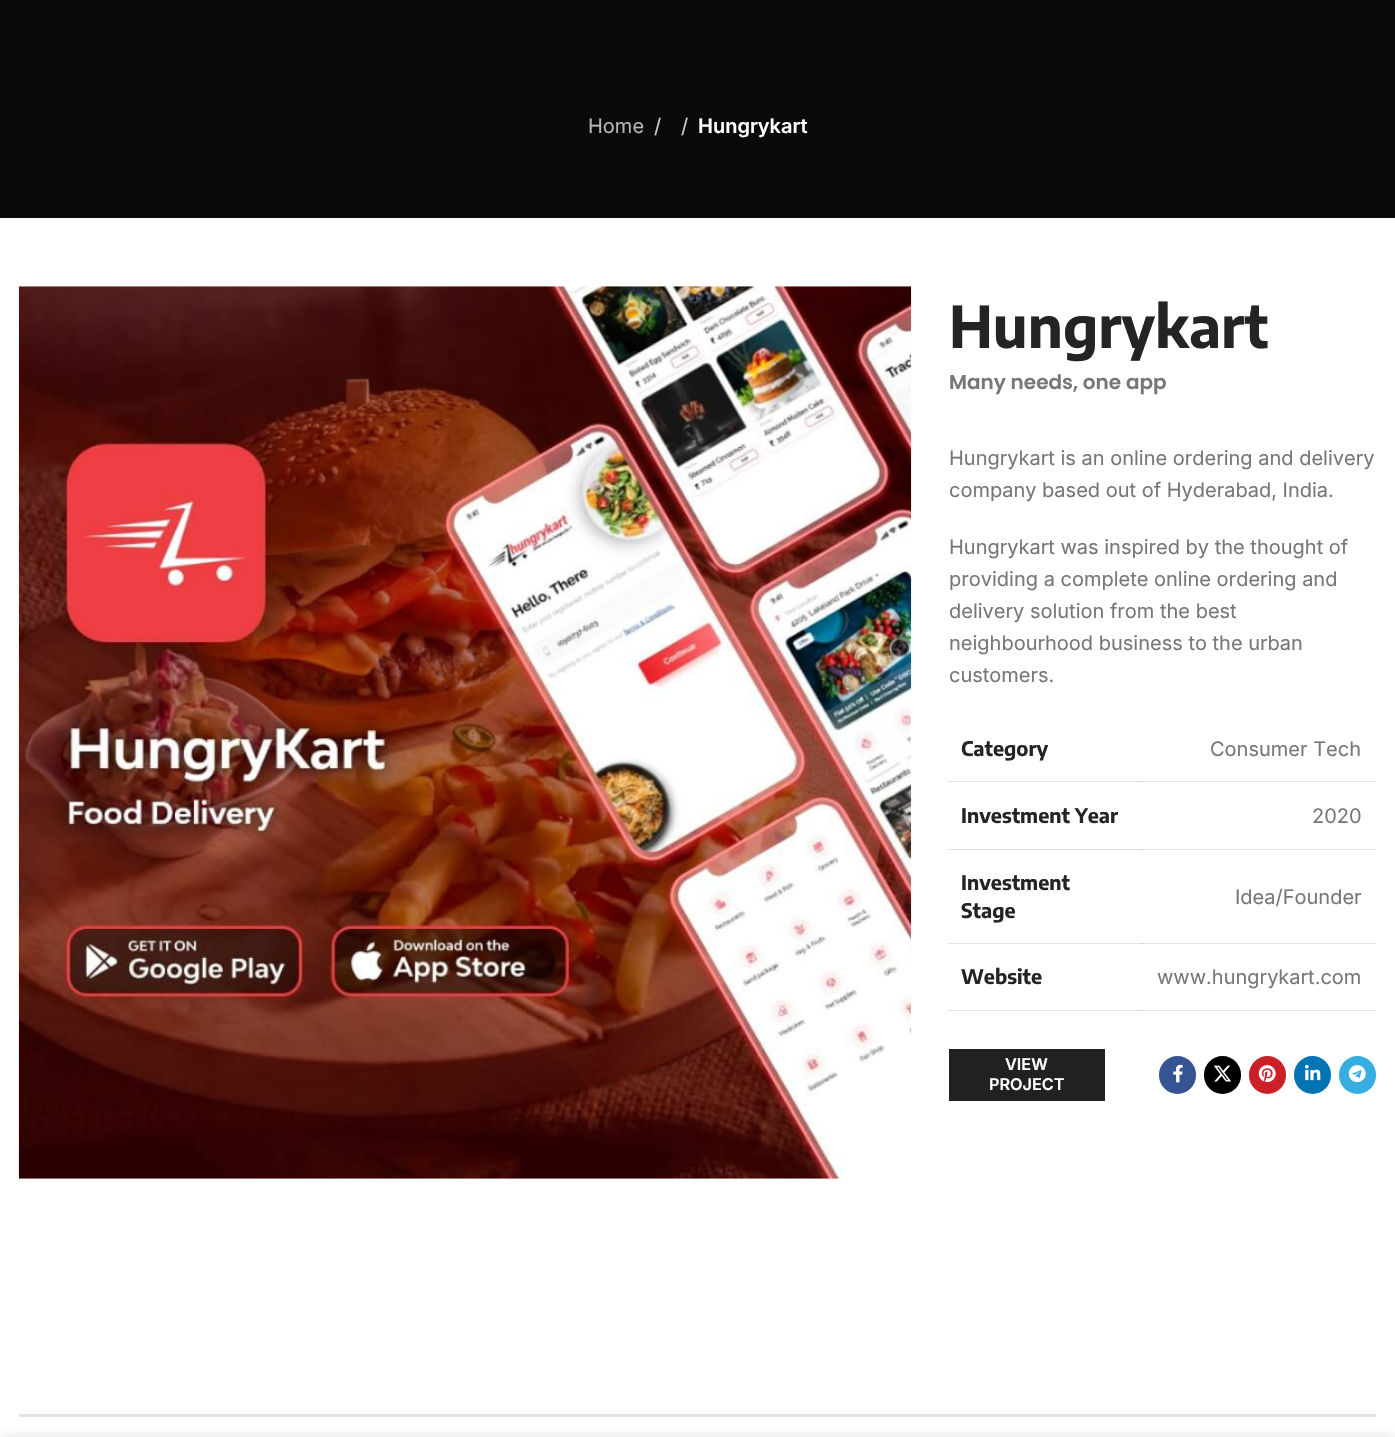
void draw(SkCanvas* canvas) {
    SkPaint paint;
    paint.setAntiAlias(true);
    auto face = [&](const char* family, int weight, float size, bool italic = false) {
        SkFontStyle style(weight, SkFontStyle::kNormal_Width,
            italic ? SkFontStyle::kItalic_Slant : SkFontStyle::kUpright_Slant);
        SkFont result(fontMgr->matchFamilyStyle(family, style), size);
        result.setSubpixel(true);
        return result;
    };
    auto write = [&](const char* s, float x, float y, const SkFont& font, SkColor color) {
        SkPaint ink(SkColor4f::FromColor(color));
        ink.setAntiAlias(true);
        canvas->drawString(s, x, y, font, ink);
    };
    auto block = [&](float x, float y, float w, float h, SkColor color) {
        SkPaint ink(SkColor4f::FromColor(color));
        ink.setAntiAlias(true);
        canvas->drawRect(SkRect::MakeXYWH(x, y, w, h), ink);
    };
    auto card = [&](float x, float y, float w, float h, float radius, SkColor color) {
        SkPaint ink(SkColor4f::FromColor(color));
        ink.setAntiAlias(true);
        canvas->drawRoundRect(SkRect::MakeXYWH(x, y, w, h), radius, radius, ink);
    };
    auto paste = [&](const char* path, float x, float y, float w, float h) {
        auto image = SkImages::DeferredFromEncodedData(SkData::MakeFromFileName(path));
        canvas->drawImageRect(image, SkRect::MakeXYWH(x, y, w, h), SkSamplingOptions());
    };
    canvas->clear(SK_ColorWHITE);
    block(948, 781, 195, 1, SkColorSetRGB(227, 227, 227));
    block(948, 849, 195, 1, SkColorSetRGB(227, 227, 227));
    block(948, 943, 195, 1, SkColorSetRGB(227, 227, 227));
    block(948, 1010, 195, 1, SkColorSetRGB(227, 227, 227));
    block(0, 0, 1395, 218, SkColorSetRGB(10, 10, 10));
    auto kFont1 = face("Inter", 400, 20);
    write("Home", 588, 133, kFont1, SkColorSetRGB(182, 182, 182));
    write("/", 654, 133, kFont1, SkColorSetRGB(206, 206, 206));
    write("/", 681, 133, kFont1, SkColorSetRGB(206, 206, 206));
    auto kFont2 = face("Inter", 600, 20);
    write("Hungrykart", 698, 133, kFont2, SK_ColorWHITE);
    paste("pic1.png", 18, 286, 894, 893);
    auto kFont3 = face("Encode Sans Condensed", 700, 57.5f);
    write("Hungrykart", 949, 348, kFont3, SkColorSetRGB(36, 36, 36));
    auto kFont4 = face("Poppins", 600, 20);
    write("Many needs, one app", 949, 389, kFont4, SkColorSetRGB(119, 119, 119));
    write("Hungrykart is an online ordering and delivery", 949, 465, kFont1, SkColorSetRGB(119, 119, 119));
    write("company based out of Hyderabad, India.", 949, 497, kFont1, SkColorSetRGB(119, 119, 119));
    write("Hungrykart was inspired by the thought of", 949, 554, kFont1, SkColorSetRGB(119, 119, 119));
    write("providing a complete online ordering and", 949, 586, kFont1, SkColorSetRGB(119, 119, 119));
    write("delivery solution from the best", 949, 618, kFont1, SkColorSetRGB(119, 119, 119));
    write("neighbourhood business to the urban", 949, 650, kFont1, SkColorSetRGB(119, 119, 119));
    write("customers.", 949, 682, kFont1, SkColorSetRGB(119, 119, 119));
    auto kFont5 = face("Encode Sans Condensed", 700, 20);
    write("Category", 961, 756, kFont5, SkColorSetRGB(36, 36, 36));
    block(1141, 781, 235, 1, SkColorSetRGB(228, 228, 228));
    block(1141, 781, 2, 1, SkColorSetRGB(203, 203, 203));
    write("Consumer Tech", 1210, 756, kFont1, SkColorSetRGB(119, 119, 119));
    write("Investment Year", 961, 823, kFont5, SkColorSetRGB(36, 36, 36));
    block(1141, 849, 235, 1, SkColorSetRGB(228, 228, 228));
    block(1141, 849, 2, 1, SkColorSetRGB(203, 203, 203));
    write("2020", 1312, 823, kFont1, SkColorSetRGB(119, 119, 119));
    write("Investment", 961, 890, kFont5, SkColorSetRGB(36, 36, 36));
    write("Stage", 961, 918, kFont5, SkColorSetRGB(36, 36, 36));
    block(1141, 943, 235, 1, SkColorSetRGB(228, 228, 228));
    block(1141, 943, 2, 1, SkColorSetRGB(203, 203, 203));
    write("Idea/Founder", 1235, 904, kFont1, SkColorSetRGB(119, 119, 119));
    write("Website", 961, 984, kFont5, SkColorSetRGB(36, 36, 36));
    block(1141, 1010, 235, 1, SkColorSetRGB(228, 228, 228));
    block(1141, 1010, 2, 1, SkColorSetRGB(203, 203, 203));
    write("www.hungrykart.com", 1157, 984, kFont1, SkColorSetRGB(119, 119, 119));
    block(949, 1049, 156, 52, SkColorSetRGB(33, 33, 33));
    auto kFont6 = face("Inter", 600, 16.25f);
    write("VIEW", 1005, 1070, kFont6, SK_ColorWHITE);
    write("PROJECT", 989, 1090, kFont6, SK_ColorWHITE);
    card(1159, 1056, 37, 38, 18.5f, SkColorSetRGB(54, 84, 147));
    paste("pic2.png", 1173, 1064, 10, 19);
    card(1204, 1056, 37, 38, 18.5f, SK_ColorBLACK);
    paste("pic3.png", 1213, 1065, 19, 17);
    card(1249, 1056, 37, 38, 18.5f, SkColorSetRGB(203, 32, 39));
    paste("pic4.png", 1258, 1065, 18, 18);
    card(1294, 1056, 37, 38, 18.5f, SkColorSetRGB(2, 116, 179));
    paste("pic5.png", 1305, 1064, 16, 17);
    card(1339, 1056, 37, 38, 18.5f, SkColorSetRGB(55, 174, 226));
    paste("pic6.png", 1348, 1065, 18, 18);
    block(19, 1414, 1357, 3, SkColorSetRGB(228, 228, 228));
    paint.setColor(SkColorSetARGB(36, 0, 0, 0));
    paint.setMaskFilter(SkMaskFilter::MakeBlur(kNormal_SkBlurStyle, 5.5f));
    canvas->drawRect(SkRect::MakeXYWH(0, 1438, 1395, 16), paint);
    paint.setMaskFilter(nullptr);
}
